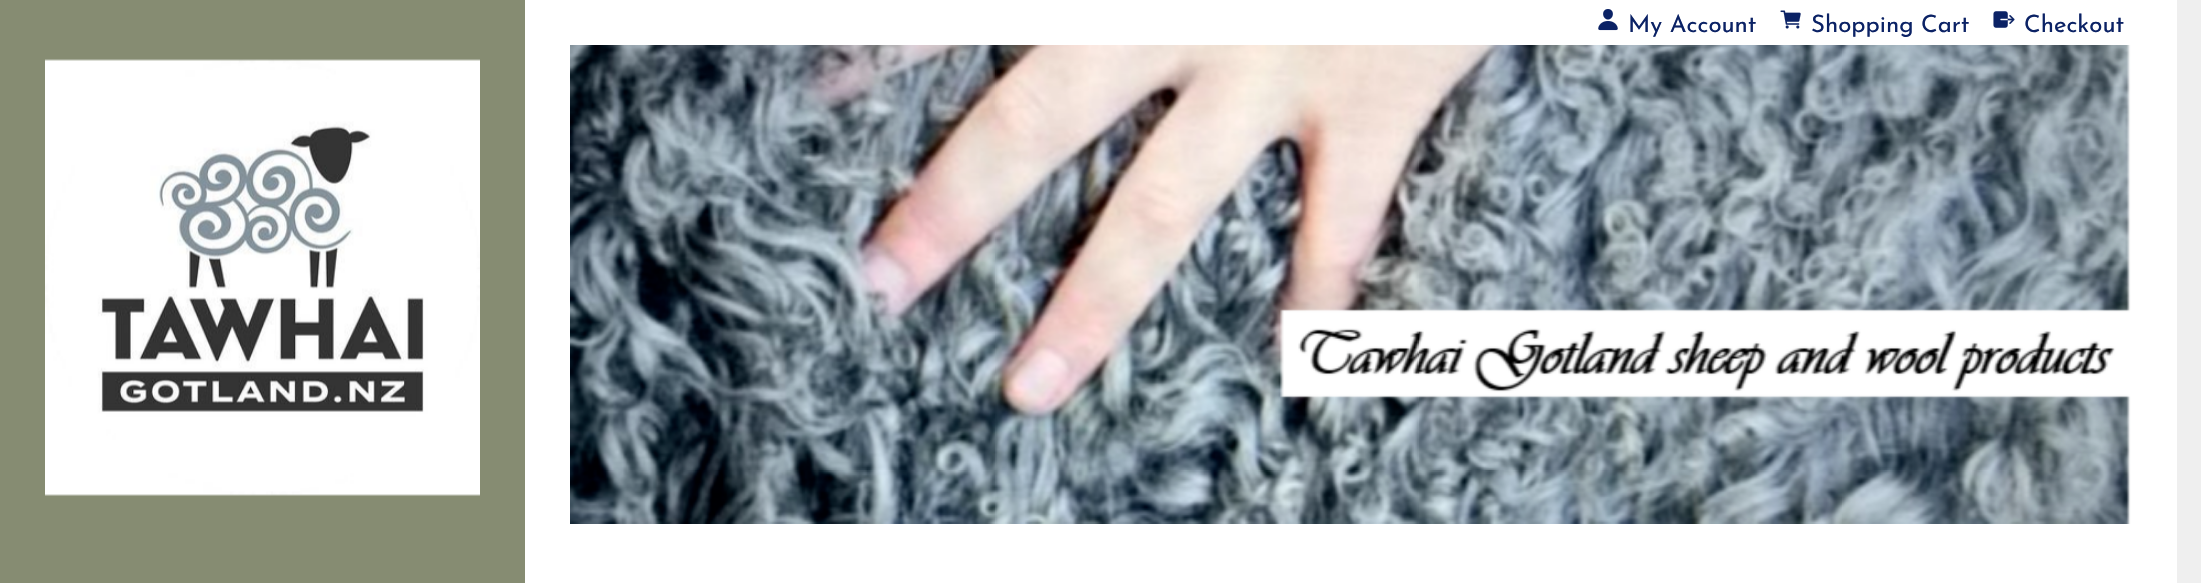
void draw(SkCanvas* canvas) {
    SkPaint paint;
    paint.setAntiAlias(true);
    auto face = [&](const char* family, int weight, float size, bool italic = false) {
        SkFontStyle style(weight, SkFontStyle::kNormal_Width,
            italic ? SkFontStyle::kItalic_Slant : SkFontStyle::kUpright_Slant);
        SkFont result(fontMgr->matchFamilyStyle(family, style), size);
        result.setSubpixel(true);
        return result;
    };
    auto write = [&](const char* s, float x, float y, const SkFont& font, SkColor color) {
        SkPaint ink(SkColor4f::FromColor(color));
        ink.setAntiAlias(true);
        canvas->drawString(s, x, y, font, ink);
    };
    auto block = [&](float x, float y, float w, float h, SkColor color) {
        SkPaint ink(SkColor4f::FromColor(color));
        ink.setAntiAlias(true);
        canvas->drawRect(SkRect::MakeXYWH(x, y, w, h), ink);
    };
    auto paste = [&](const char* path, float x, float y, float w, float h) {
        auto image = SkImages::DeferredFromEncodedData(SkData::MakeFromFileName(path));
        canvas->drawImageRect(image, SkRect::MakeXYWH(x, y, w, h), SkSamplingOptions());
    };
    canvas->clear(SkColorSetRGB(239, 239, 239));
    block(0, 0, 525, 583, SkColorSetRGB(134, 140, 114));
    paste("pic1.png", 45, 59, 435, 437);
    block(525, 0, 1652, 583, SK_ColorWHITE);
    paste("pic2.png", 1598, 9, 20, 22);
    auto kFont1 = face("Josefin Sans", 400, 24);
    write("My Account", 1628, 32, kFont1, SkColorSetRGB(11, 34, 101));
    paste("pic3.png", 1780, 10, 21, 19);
    write("Shopping Cart", 1811, 32, kFont1, SkColorSetRGB(11, 34, 101));
    paste("pic4.png", 1993, 11, 22, 17);
    write("Checkout", 2024, 32, kFont1, SkColorSetRGB(11, 34, 101));
    paste("pic5.png", 570, 45, 1561, 479);
}
